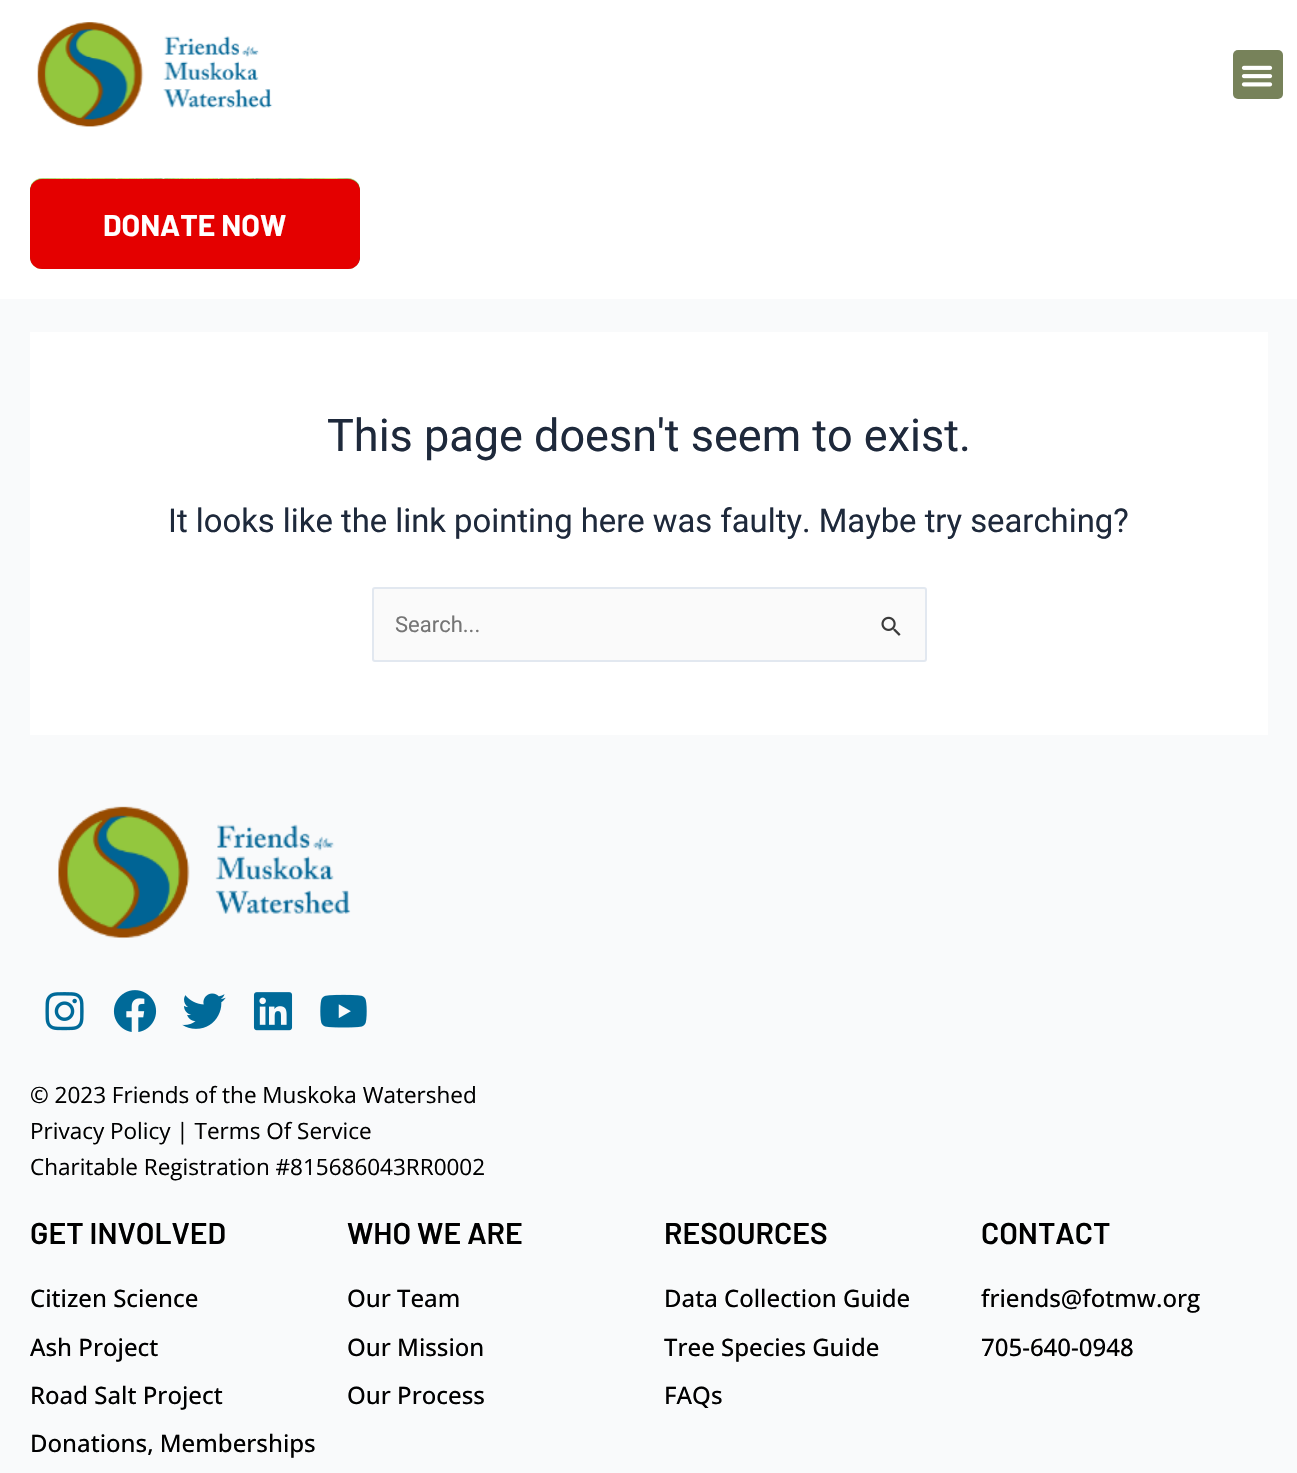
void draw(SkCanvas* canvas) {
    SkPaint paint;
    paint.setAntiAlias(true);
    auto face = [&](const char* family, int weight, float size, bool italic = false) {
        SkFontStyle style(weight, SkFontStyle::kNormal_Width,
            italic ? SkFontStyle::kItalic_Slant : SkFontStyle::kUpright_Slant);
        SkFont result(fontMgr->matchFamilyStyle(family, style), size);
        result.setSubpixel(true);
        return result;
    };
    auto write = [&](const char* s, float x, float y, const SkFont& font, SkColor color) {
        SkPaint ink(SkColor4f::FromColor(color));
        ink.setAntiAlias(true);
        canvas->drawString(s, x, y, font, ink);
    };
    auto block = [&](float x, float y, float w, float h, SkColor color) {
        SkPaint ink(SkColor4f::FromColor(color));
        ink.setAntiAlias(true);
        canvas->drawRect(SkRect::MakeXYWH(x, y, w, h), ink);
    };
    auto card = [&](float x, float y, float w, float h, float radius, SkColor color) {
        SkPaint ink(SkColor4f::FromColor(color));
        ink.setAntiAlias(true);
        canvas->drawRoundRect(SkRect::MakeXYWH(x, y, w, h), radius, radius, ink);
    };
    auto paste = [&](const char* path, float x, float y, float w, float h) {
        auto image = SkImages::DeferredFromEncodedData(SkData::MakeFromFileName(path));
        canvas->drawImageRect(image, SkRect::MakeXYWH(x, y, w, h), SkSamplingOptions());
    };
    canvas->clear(SkColorSetRGB(249, 250, 251));
    block(0, 0, 1297, 299, SK_ColorWHITE);
    paste("pic1.png", 37, 22, 236, 105);
    card(1233, 50, 50, 49, 5, SkColorSetRGB(119, 130, 90));
    paste("pic2.png", 1241, 65, 32, 22);
    paste("pic3.png", 30, 178, 330, 91);
    card(30, 179, 330, 90, 12, SkColorSetRGB(228, 0, 0));
    auto kFont1 = face("Barlow", 700, 30);
    write("DONATE NOW", 103, 236, kFont1, SK_ColorWHITE);
    block(30, 332, 1238, 403, SK_ColorWHITE);
    auto kFont2 = face("Roboto", 400, 45);
    write("This page doesn't seem to exist.", 327, 451, kFont2, SkColorSetRGB(30, 41, 59));
    auto kFont3 = face("Roboto", 400, 32.8f);
    write("It looks like the link pointing here was faulty. Maybe try searching?", 168, 532, kFont3, SkColorSetRGB(30, 41, 59));
    paint.setColor(SkColorSetRGB(250, 250, 250));
    canvas->drawRoundRect(SkRect::MakeXYWH(373, 588, 553, 73), 2, 2, paint);
    paint.setStyle(SkPaint::kStroke_Style);
    paint.setStrokeWidth(2);
    paint.setColor(SkColorSetRGB(226, 232, 240));
    canvas->drawRoundRect(SkRect::MakeXYWH(373, 588, 553, 73), 2, 2, paint);
    auto kFont4 = face("Roboto", 400, 22);
    write("Search...", 395, 632, kFont4, SkColorSetRGB(117, 117, 117));
    paste("pic4.png", 881, 616, 20, 20);
    paste("pic5.png", 58, 806, 293, 133);
    paste("pic6.png", 45, 992, 39, 39);
    paste("pic7.png", 113, 990, 44, 42);
    paste("pic8.png", 182, 993, 44, 36);
    paste("pic9.png", 253, 992, 40, 39);
    paste("pic10.png", 320, 994, 47, 34);
    auto kFont5 = face("Open Sans", 400, 22.5f);
    write("© 2023 Friends of the Muskoka Watershed", 30, 1103, kFont5, SK_ColorBLACK);
    write("Privacy Policy | Terms Of Service", 30, 1139, kFont5, SK_ColorBLACK);
    write("Charitable Registration #815686043RR0002", 30, 1175, kFont5, SK_ColorBLACK);
    auto kFont6 = face("Barlow", 600, 30);
    write("GET INVOLVED", 30, 1244, kFont6, SK_ColorBLACK);
    auto kFont7 = face("Open Sans", 500, 24);
    write("Citizen Science", 30, 1307, kFont7, SK_ColorBLACK);
    write("Ash Project", 30, 1356, kFont7, SK_ColorBLACK);
    write("Road Salt Project", 30, 1404, kFont7, SK_ColorBLACK);
    write("Donations, Memberships", 30, 1452, kFont7, SK_ColorBLACK);
    write("WHO WE ARE", 347, 1244, kFont6, SK_ColorBLACK);
    write("Our Team", 347, 1307, kFont7, SK_ColorBLACK);
    write("Our Mission", 347, 1356, kFont7, SK_ColorBLACK);
    write("Our Process", 347, 1404, kFont7, SK_ColorBLACK);
    write("RESOURCES", 664, 1244, kFont6, SK_ColorBLACK);
    write("Data Collection Guide", 664, 1307, kFont7, SK_ColorBLACK);
    write("Tree Species Guide", 664, 1356, kFont7, SK_ColorBLACK);
    write("FAQs", 664, 1404, kFont7, SK_ColorBLACK);
    write("CONTACT", 981, 1244, kFont6, SK_ColorBLACK);
    write("friends@fotmw.org", 981, 1307, kFont7, SK_ColorBLACK);
    write("705-640-0948", 981, 1356, kFont7, SK_ColorBLACK);
}
